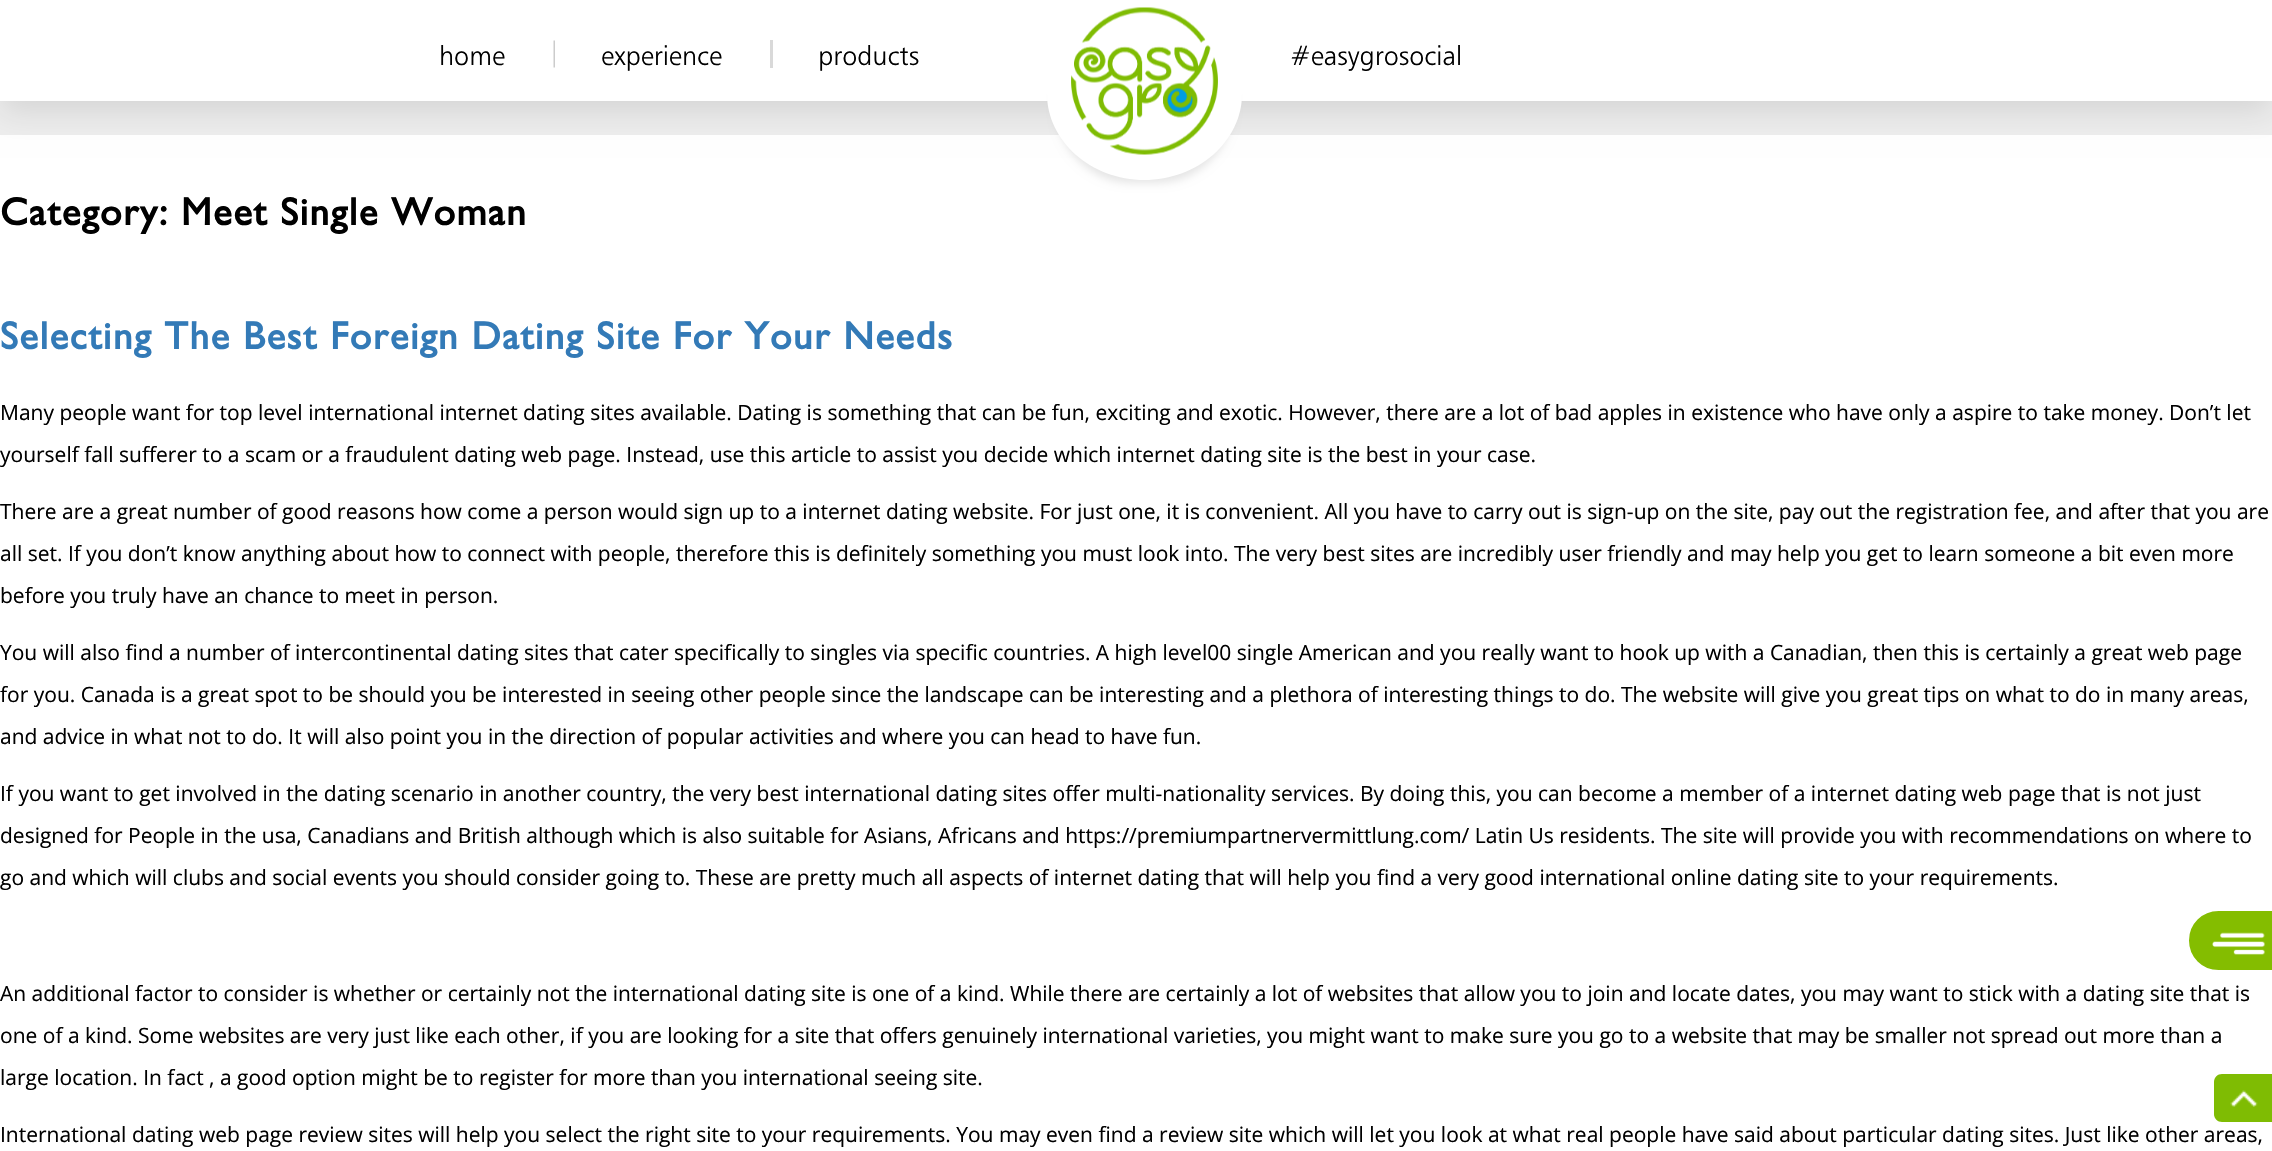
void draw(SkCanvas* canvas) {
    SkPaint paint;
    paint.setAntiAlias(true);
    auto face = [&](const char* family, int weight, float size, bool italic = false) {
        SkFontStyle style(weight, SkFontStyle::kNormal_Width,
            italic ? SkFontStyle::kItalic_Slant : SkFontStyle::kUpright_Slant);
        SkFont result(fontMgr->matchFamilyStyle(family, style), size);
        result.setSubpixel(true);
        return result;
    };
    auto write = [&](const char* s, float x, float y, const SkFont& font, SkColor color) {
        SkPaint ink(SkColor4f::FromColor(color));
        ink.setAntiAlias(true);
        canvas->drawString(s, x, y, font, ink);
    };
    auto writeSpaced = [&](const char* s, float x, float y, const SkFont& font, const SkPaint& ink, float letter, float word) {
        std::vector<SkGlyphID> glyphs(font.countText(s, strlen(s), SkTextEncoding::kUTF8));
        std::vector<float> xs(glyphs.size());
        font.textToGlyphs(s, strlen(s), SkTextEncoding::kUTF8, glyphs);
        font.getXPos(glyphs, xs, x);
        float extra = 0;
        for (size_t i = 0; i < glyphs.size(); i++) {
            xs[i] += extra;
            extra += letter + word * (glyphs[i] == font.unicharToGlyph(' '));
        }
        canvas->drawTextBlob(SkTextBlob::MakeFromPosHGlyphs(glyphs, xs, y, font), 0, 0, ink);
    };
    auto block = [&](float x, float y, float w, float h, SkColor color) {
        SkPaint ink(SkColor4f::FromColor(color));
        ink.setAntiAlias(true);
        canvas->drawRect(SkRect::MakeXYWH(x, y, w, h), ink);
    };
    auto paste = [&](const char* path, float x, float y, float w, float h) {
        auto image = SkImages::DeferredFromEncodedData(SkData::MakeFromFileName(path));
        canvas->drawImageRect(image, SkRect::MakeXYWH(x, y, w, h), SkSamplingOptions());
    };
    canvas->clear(SK_ColorWHITE);
    block(0, 101, 2272, 34, SkColorSetRGB(238, 238, 238));
    paint.setColor(SkColorSetARGB(26, 0, 0, 0));
    paint.setMaskFilter(SkMaskFilter::MakeBlur(kNormal_SkBlurStyle, 15));
    canvas->drawRect(SkRect::MakeXYWH(0, 12, 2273, 101), paint);
    paint.setMaskFilter(nullptr);
    block(0, 0, 2272, 101, SK_ColorWHITE);
    auto kFont1 = face("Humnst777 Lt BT", 300, 27);
    write("home", 439, 65, kFont1, SK_ColorBLACK);
    paste("pic1.png", 553, 40, 2, 28);
    write("experience", 601, 65, kFont1, SK_ColorBLACK);
    block(770, 40, 3, 28, SkColorSetRGB(217, 217, 217));
    write("products", 818, 65, kFont1, SK_ColorBLACK);
    paint.setMaskFilter(SkMaskFilter::MakeBlur(kNormal_SkBlurStyle, 4.5f));
    canvas->drawRoundRect(SkRect::MakeXYWH(1056, 29, 177, 154), 77, 77, paint);
    paint.setMaskFilter(nullptr);
    paint.setColor(SK_ColorWHITE);
    canvas->drawPath(SkPathBuilder().moveTo(1047, 8).lineTo(1242, 8).lineTo(1242, 94).cubicTo(1242, 141, 1198, 180, 1144, 180).cubicTo(1091, 180, 1047, 141, 1047, 94).close().detach(), paint);
    paste("pic2.png", 1071, 7, 147, 148);
    write("#easygrosocial", 1290, 65, kFont1, SK_ColorBLACK);
    auto kFont2 = face("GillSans", 700, 39);
    paint.setColor(SK_ColorBLACK);
    writeSpaced("Category: Meet Single Woman", 0, 225, kFont2, paint, 1.5f, 0);
    paint.setColor(SkColorSetRGB(51, 122, 183));
    writeSpaced("Selecting The Best Foreign Dating Site For Your Needs", 0, 349, kFont2, paint, 1.5f, 0);
    auto kFont3 = face("Open Sans", 400, 21);
    write("Many people want for top level international internet dating sites available. Dating is something that can be fun, exciting and exotic. However, there are a lot of bad apples in existence who have only a aspire to take money. Don’t let", 0, 420, kFont3, SK_ColorBLACK);
    write("yourself fall sufferer to a scam or a fraudulent dating web page. Instead, use this article to assist you decide which internet dating site is the best in your case.", 0, 462, kFont3, SK_ColorBLACK);
    write("There are a great number of good reasons how come a person would sign up to a internet dating website. For just one, it is convenient. All you have to carry out is sign-up on the site, pay out the registration fee, and after that you are", 0, 519, kFont3, SK_ColorBLACK);
    write("all set. If you don’t know anything about how to connect with people, therefore this is definitely something you must look into. The very best sites are incredibly user friendly and may help you get to learn someone a bit even more", 0, 561, kFont3, SK_ColorBLACK);
    write("before you truly have an chance to meet in person.", 0, 603, kFont3, SK_ColorBLACK);
    write("You will also find a number of intercontinental dating sites that cater specifically to singles via specific countries. A high level00 single American and you really want to hook up with a Canadian, then this is certainly a great web page", 0, 660, kFont3, SK_ColorBLACK);
    write("for you. Canada is a great spot to be should you be interested in seeing other people since the landscape can be interesting and a plethora of interesting things to do. The website will give you great tips on what to do in many areas,", 0, 702, kFont3, SK_ColorBLACK);
    write("and advice in what not to do. It will also point you in the direction of popular activities and where you can head to have fun.", 0, 744, kFont3, SK_ColorBLACK);
    write("If you want to get involved in the dating scenario in another country, the very best international dating sites offer multi-nationality services. By doing this, you can become a member of a internet dating web page that is not just", 0, 801, kFont3, SK_ColorBLACK);
    write("designed for People in the usa, Canadians and British although which is also suitable for Asians, Africans and https://premiumpartnervermittlung.com/ Latin Us residents. The site will provide you with recommendations on where to", 0, 843, kFont3, SK_ColorBLACK);
    write("go and which will clubs and social events you should consider going to. These are pretty much all aspects of internet dating that will help you find a very good international online dating site to your requirements.", 0, 885, kFont3, SK_ColorBLACK);
    write("An additional factor to consider is whether or certainly not the international dating site is one of a kind. While there are certainly a lot of websites that allow you to join and locate dates, you may want to stick with a dating site that is", 0, 1001, kFont3, SK_ColorBLACK);
    write("one of a kind. Some websites are very just like each other, if you are looking for a site that offers genuinely international varieties, you might want to make sure you go to a website that may be smaller not spread out more than a", 0, 1043, kFont3, SK_ColorBLACK);
    write("large location. In fact , a good option might be to register for more than you international seeing site.", 0, 1085, kFont3, SK_ColorBLACK);
    write("International dating web page review sites will help you select the right site to your requirements. You may even find a review site which will let you look at what real people have said about particular dating sites. Just like other areas,", 0, 1142, kFont3, SK_ColorBLACK);
    paint.setColor(SkColorSetRGB(132, 189, 0));
    canvas->drawPath(SkPathBuilder().moveTo(2218.5f, 910).lineTo(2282, 910).lineTo(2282, 971).lineTo(2218.5f, 971).cubicTo(2201.5f, 971, 2188, 957.5f, 2188, 940.5f).cubicTo(2188, 923.5f, 2201.5f, 910, 2218.5f, 910).close().detach(), paint);
    paint.setStyle(SkPaint::kStroke_Style);
    paint.setStrokeWidth(2);
    paint.setColor(SK_ColorWHITE);
    canvas->drawPath(SkPathBuilder().moveTo(2218.5f, 910).lineTo(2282, 910).lineTo(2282, 971).lineTo(2218.5f, 971).cubicTo(2201.5f, 971, 2188, 957.5f, 2188, 940.5f).cubicTo(2188, 923.5f, 2201.5f, 910, 2218.5f, 910).close().detach(), paint);
    paste("pic3.png", 2212, 932, 53, 23);
    paint.setStyle(SkPaint::kFill_Style);
    paint.setColor(SkColorSetRGB(127, 188, 3));
    canvas->drawPath(SkPathBuilder().moveTo(2222, 1074).lineTo(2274, 1074).lineTo(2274, 1122).lineTo(2222, 1122).cubicTo(2217.5f, 1122, 2214, 1118.5f, 2214, 1114).lineTo(2214, 1082).cubicTo(2214, 1077.5f, 2217.5f, 1074, 2222, 1074).close().detach(), paint);
    paste("pic4.png", 2230, 1090, 28, 17);
}
